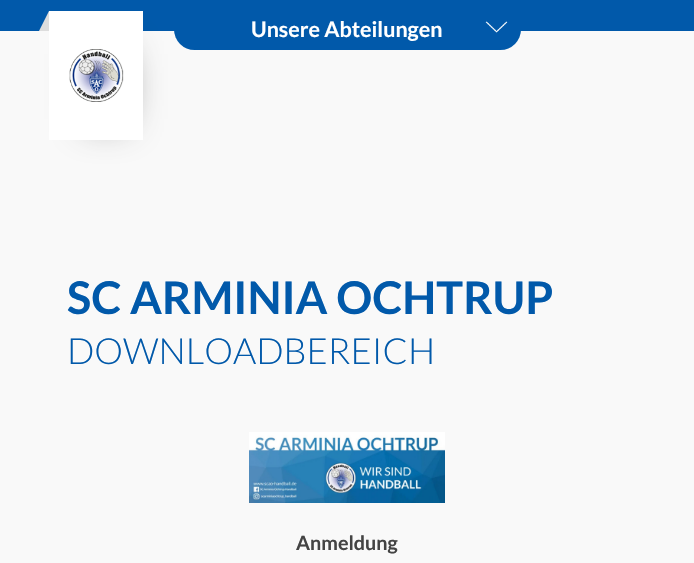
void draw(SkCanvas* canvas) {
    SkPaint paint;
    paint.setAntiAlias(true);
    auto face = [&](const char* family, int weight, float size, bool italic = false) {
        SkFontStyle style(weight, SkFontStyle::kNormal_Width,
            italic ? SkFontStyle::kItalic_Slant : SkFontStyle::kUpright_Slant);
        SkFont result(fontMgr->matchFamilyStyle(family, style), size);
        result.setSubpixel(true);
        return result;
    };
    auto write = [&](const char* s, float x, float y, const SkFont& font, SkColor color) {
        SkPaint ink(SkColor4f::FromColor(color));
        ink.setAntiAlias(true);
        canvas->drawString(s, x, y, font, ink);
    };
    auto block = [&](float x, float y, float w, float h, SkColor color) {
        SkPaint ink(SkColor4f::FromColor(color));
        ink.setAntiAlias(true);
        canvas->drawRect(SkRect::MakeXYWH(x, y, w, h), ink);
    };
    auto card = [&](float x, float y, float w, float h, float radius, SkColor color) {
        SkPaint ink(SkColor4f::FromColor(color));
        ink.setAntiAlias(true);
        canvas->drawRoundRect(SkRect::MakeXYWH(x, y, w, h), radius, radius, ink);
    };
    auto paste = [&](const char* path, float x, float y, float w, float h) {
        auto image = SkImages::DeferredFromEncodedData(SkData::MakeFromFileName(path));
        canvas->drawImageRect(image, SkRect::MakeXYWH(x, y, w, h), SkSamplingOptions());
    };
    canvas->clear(SkColorSetRGB(249, 249, 249));
    block(0, 0, 694, 31, SkColorSetRGB(1, 89, 170));
    paint.setColor(SkColorSetRGB(221, 221, 221));
    canvas->drawPath(SkPathBuilder().moveTo(49, 11).lineTo(49, 31).lineTo(39, 31).close().detach(), paint);
    card(174, 9, 347, 41, 20.5f, SkColorSetRGB(1, 89, 170));
    paint.setColor(SkColorSetARGB(191, 0, 0, 0));
    paint.setMaskFilter(SkMaskFilter::MakeBlur(kNormal_SkBlurStyle, 19.5f));
    canvas->drawRect(SkRect::MakeXYWH(91, 54, 30, 65), paint);
    paint.setMaskFilter(nullptr);
    block(49, 11, 94, 129, SK_ColorWHITE);
    paste("pic1.png", 69, 49, 55, 53);
    auto kFont1 = face("Lato", 700, 21.5f);
    write("Unsere Abteilungen", 251, 37, kFont1, SK_ColorWHITE);
    paste("pic2.png", 485, 21, 23, 12);
    auto kFont2 = face("Lato", 700, 45);
    write("SC ARMINIA OCHTRUP", 67, 314, kFont2, SkColorSetRGB(1, 89, 170));
    auto kFont3 = face("Lato", 300, 36);
    write("DOWNLOADBEREICH", 67, 364, kFont3, SkColorSetRGB(1, 89, 170));
    paste("pic3.png", 249, 432, 196, 71);
    auto kFont4 = face("Lato", 700, 19.75f);
    write("Anmeldung", 296, 550, kFont4, SkColorSetRGB(68, 68, 68));
}
